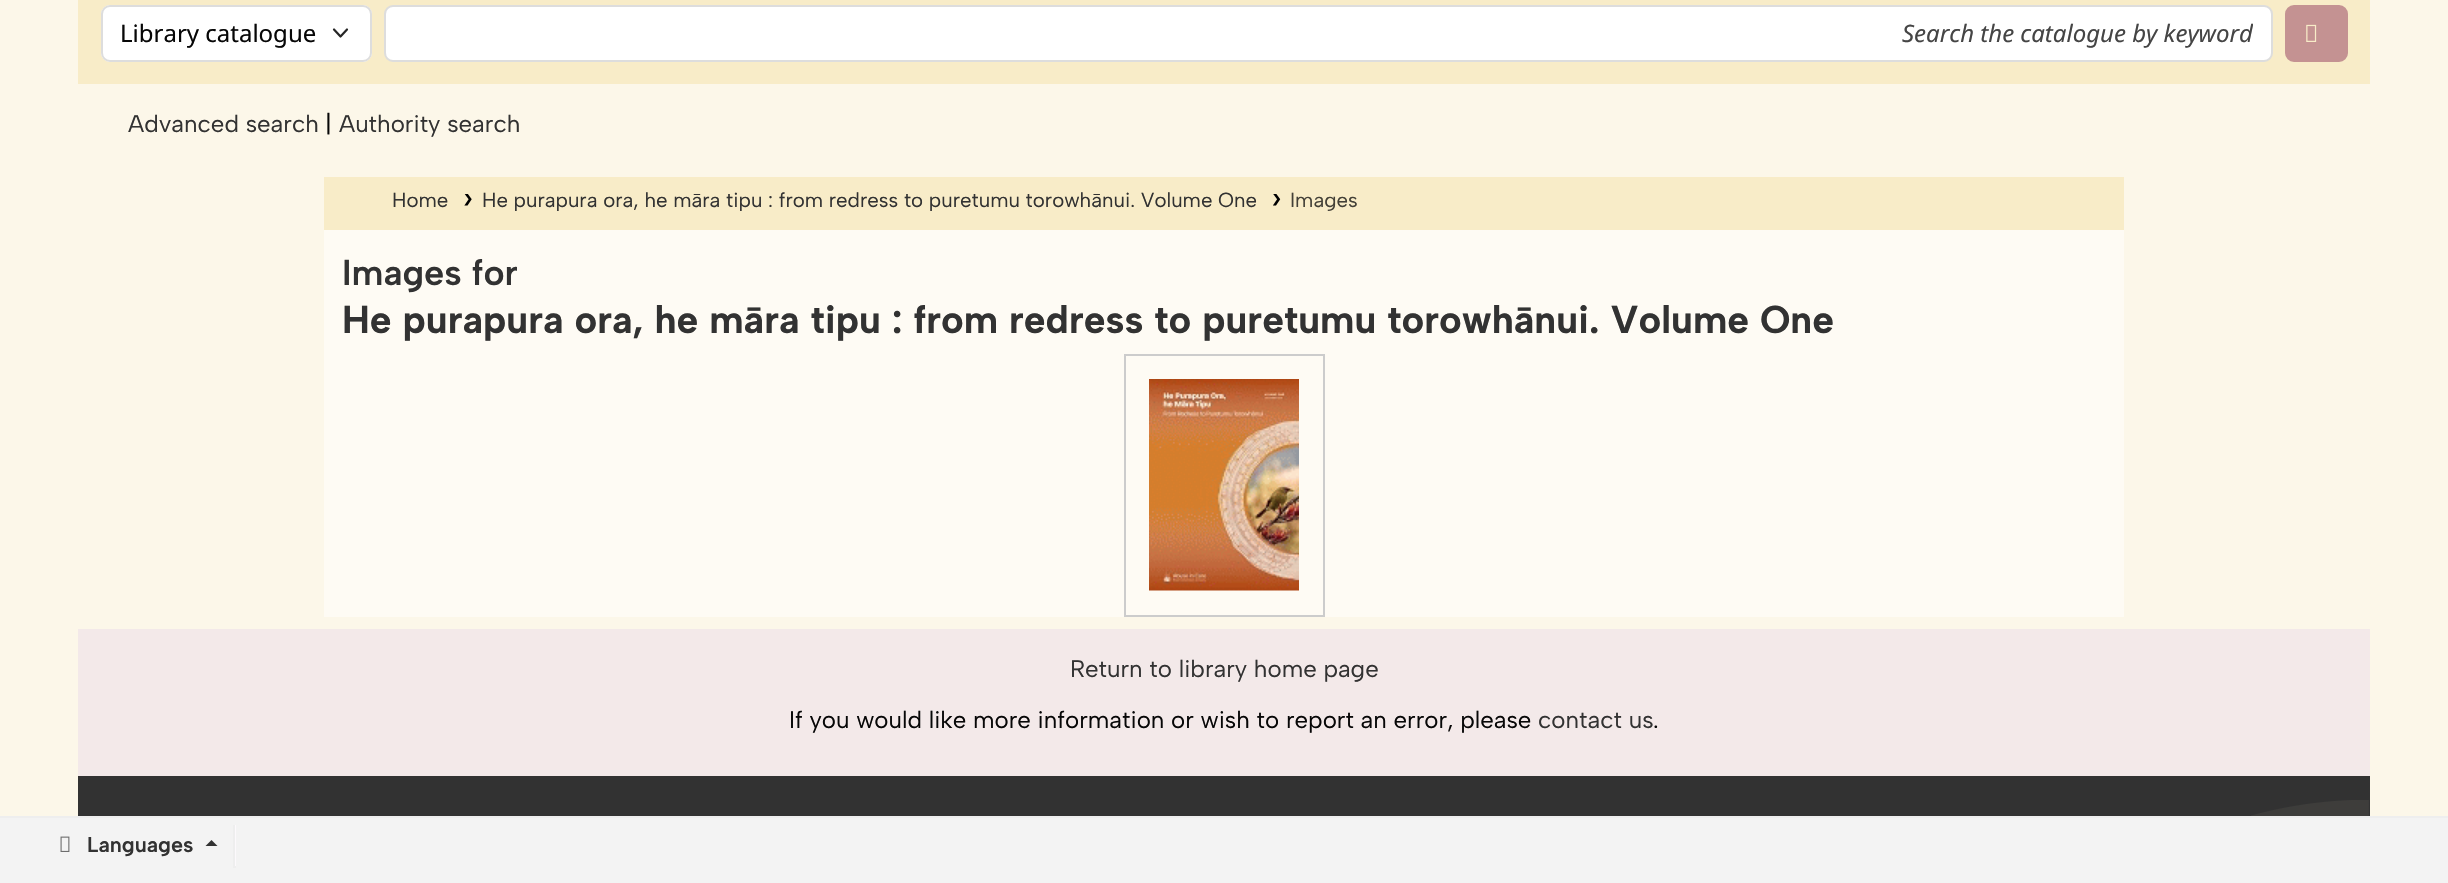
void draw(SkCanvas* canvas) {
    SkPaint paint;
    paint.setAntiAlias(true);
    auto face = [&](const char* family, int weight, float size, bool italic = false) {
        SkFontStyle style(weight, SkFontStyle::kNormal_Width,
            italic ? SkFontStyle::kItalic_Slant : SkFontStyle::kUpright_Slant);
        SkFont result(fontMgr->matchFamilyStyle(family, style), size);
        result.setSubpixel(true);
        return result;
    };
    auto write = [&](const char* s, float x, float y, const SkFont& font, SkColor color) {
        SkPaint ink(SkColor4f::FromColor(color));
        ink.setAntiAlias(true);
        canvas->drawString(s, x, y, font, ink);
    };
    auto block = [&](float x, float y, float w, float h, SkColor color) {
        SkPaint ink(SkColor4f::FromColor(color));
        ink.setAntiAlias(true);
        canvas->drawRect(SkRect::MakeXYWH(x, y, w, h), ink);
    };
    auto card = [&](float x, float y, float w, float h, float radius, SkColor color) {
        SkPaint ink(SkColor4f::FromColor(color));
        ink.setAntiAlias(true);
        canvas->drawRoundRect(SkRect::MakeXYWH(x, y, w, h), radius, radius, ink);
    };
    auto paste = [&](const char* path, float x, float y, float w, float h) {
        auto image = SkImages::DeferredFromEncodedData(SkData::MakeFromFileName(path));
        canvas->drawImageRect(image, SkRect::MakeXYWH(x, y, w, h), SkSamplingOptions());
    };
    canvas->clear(SkColorSetRGB(252, 247, 233));
    block(78, 0, 2292, 84, SkColorSetRGB(248, 236, 200));
    card(101, 5, 271, 57, 9, SK_ColorWHITE);
    paint.setStyle(SkPaint::kStroke_Style);
    paint.setStrokeWidth(2.2f);
    paint.setStrokeCap(SkPaint::kRound_Cap);
    paint.setStrokeJoin(SkPaint::kRound_Join);
    paint.setColor(SkColorSetRGB(37, 37, 37));
    canvas->drawPath(SkPathBuilder().moveTo(334, 29.5f).lineTo(340.5f, 36.5f).lineTo(347, 29.5f).detach(), paint);
    paint.setStrokeWidth(2);
    paint.setStrokeCap(SkPaint::kButt_Cap);
    paint.setStrokeJoin(SkPaint::kMiter_Join);
    paint.setColor(SkColorSetRGB(221, 221, 221));
    canvas->drawRoundRect(SkRect::MakeXYWH(102, 6, 269, 55), 8, 8, paint);
    auto kFont1 = face("Noto Sans", 400, 24);
    write("Library catalogue", 120, 42, kFont1, SkColorSetRGB(7, 7, 7));
    paint.setStyle(SkPaint::kFill_Style);
    paint.setColor(SK_ColorWHITE);
    canvas->drawRoundRect(SkRect::MakeXYWH(385, 6, 1887, 55), 8, 8, paint);
    paint.setStyle(SkPaint::kStroke_Style);
    paint.setColor(SkColorSetRGB(221, 221, 221));
    canvas->drawRoundRect(SkRect::MakeXYWH(385, 6, 1887, 55), 8, 8, paint);
    canvas->save();
    canvas->clipRect(SkRect::MakeXYWH(404, 17, 1849, 33));
    auto kFont2 = face("Noto Sans", 400, 24, true);
    write("Search the catalogue by keyword", 1902, 42, kFont2, SkColorSetRGB(69, 69, 69));
    canvas->restore();
    paint.setStyle(SkPaint::kFill_Style);
    paint.setColor(SkColorSetRGB(196, 146, 146));
    canvas->drawRoundRect(SkRect::MakeXYWH(2286, 6, 61, 55), 8, 8, paint);
    paint.setStyle(SkPaint::kStroke_Style);
    canvas->drawRoundRect(SkRect::MakeXYWH(2286, 6, 61, 55), 8, 8, paint);
    paste("pic1.png", 2306, 24, 11, 18);
    auto kFont3 = face("Albert Sans", 400, 24);
    write("Advanced search", 128, 132, kFont3, SkColorSetRGB(50, 50, 50));
    write("|", 325, 132, kFont3, SkColorSetRGB(7, 7, 7));
    write("Authority search", 339, 132, kFont3, SkColorSetRGB(50, 50, 50));
    block(324, 230, 1800, 387, SkColorSetRGB(254, 251, 244));
    block(324, 177, 1800, 53, SkColorSetRGB(248, 236, 200));
    auto kFont4 = face("Albert Sans", 400, 20.4f);
    write("Home", 392, 207, kFont4, SkColorSetRGB(50, 50, 50));
    paste("pic2.png", 464, 194, 8, 12);
    write("He purapura ora, he māra tipu : from redress to puretumu torowhānui. Volume One", 482, 207, kFont4, SkColorSetRGB(50, 50, 50));
    paste("pic3.png", 1273, 194, 8, 12);
    write("Images", 1290, 207, kFont4, SkColorSetRGB(67, 64, 55));
    auto kFont5 = face("Albert Sans", 600, 36);
    write("Images for", 342, 285, kFont5, SkColorSetRGB(50, 50, 50));
    auto kFont6 = face("Albert Sans", 700, 38.9f);
    write("He purapura ora, he māra tipu : from redress to puretumu torowhānui. Volume One", 342, 333, kFont6, SkColorSetRGB(50, 50, 50));
    paint.setColor(SkColorSetRGB(204, 204, 204));
    canvas->drawRect(SkRect::MakeXYWH(1125, 355, 199, 261), paint);
    paste("pic4.png", 1149, 379, 150, 212);
    block(78, 629, 2292, 147, SkColorSetRGB(243, 233, 233));
    write("Return to library home page", 1070, 677, kFont3, SkColorSetRGB(50, 50, 50));
    write("If you would like more information or wish to report an error, please", 789, 728, kFont3, SkColorSetRGB(7, 7, 7));
    write("contact us", 1538, 728, kFont3, SkColorSetRGB(50, 50, 50));
    write(".", 1653, 728, kFont3, SkColorSetRGB(7, 7, 7));
    block(78, 776, 2292, 40, SkColorSetRGB(50, 50, 50));
    paste("pic5.png", 2251, 800, 118, 16);
    block(0, 818, 2448, 65, SkColorSetRGB(243, 243, 243));
    block(0, 816, 2448, 2, SkColorSetRGB(238, 238, 238));
    paste("pic6.png", 60, 836, 10, 16);
    auto kFont7 = face("Albert Sans", 600, 21.5f);
    write("Languages", 87, 852, kFont7, SkColorSetRGB(50, 50, 50));
    paint.setStyle(SkPaint::kFill_Style);
    paint.setColor(SkColorSetRGB(50, 50, 50));
    canvas->drawPath(SkPathBuilder().moveTo(217.5f, 846).lineTo(205.5f, 846).lineTo(211.5f, 840).close().detach(), paint);
    block(235, 825, 1, 42, SkColorSetRGB(252, 249, 252));
    block(233, 866, 3, 2, SkColorSetRGB(238, 238, 238));
    block(233, 825, 2, 42, SkColorSetRGB(238, 238, 238));
}
